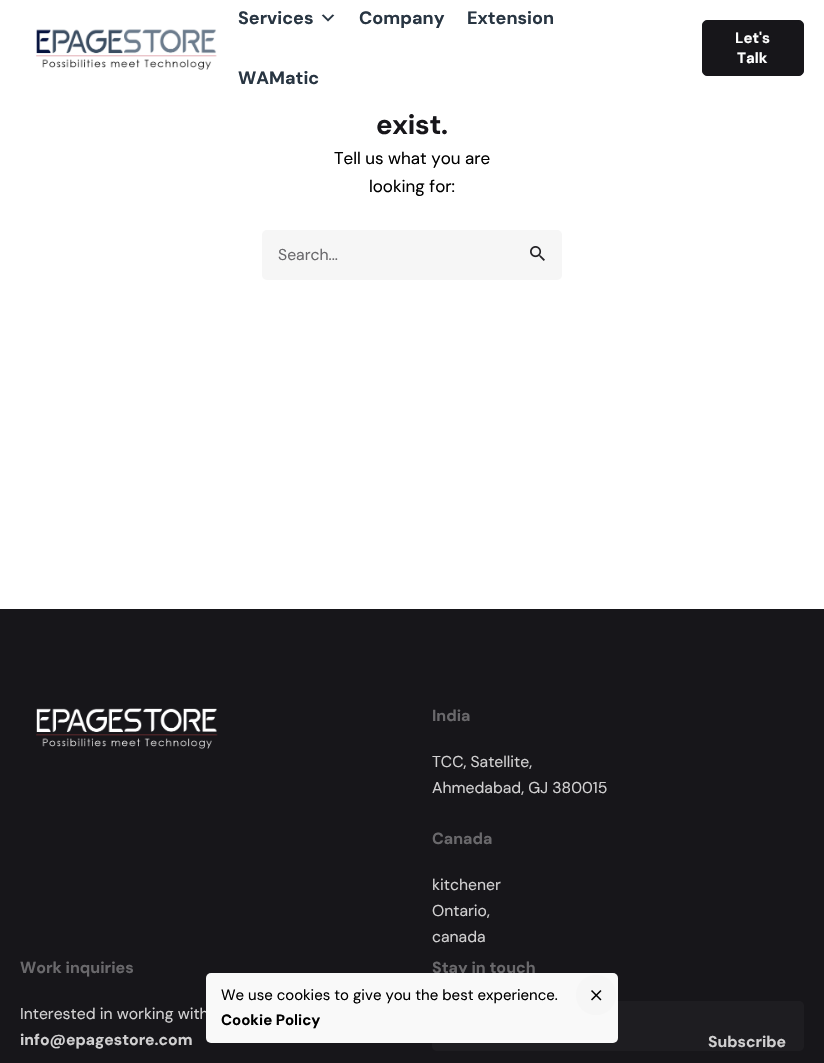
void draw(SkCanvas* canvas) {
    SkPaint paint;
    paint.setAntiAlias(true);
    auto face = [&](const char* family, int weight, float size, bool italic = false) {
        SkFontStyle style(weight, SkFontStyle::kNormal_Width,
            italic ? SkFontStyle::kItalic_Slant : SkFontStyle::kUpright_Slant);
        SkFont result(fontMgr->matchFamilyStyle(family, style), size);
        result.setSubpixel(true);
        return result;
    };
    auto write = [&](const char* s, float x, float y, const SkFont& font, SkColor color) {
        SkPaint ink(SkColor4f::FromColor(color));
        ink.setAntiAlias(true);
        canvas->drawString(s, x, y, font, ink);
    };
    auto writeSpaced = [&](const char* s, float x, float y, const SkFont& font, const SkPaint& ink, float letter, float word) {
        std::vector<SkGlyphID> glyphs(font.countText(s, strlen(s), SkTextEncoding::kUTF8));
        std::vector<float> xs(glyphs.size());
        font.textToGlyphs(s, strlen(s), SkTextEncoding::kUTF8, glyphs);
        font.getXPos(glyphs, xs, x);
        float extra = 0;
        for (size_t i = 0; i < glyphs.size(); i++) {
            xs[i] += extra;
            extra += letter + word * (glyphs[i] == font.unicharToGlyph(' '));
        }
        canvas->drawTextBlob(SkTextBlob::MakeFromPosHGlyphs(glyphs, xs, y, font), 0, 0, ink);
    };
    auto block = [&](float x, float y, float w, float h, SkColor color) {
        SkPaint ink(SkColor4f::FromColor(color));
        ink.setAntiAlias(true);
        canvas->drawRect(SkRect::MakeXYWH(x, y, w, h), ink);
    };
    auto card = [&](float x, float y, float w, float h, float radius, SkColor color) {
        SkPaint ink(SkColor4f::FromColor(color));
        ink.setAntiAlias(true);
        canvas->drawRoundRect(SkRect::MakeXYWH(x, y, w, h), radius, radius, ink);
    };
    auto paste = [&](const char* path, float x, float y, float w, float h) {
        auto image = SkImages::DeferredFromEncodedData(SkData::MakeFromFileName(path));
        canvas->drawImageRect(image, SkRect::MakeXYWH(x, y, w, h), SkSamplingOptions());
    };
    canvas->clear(SK_ColorWHITE);
    paste("pic1.png", 36, 29, 181, 41);
    auto kFont1 = face("DM Sans", 700, 18);
    write("Services", 238, 24, kFont1, SkColorSetRGB(40, 53, 66));
    paste("pic2.png", 321, 14, 14, 8);
    write("Company", 359, 24, kFont1, SkColorSetRGB(40, 53, 66));
    write("Extension", 467, 24, kFont1, SkColorSetRGB(40, 53, 66));
    write("WAMatic", 238, 84, kFont1, SkColorSetRGB(40, 53, 66));
    paint.setColor(SkColorSetRGB(23, 22, 26));
    canvas->drawRoundRect(SkRect::MakeXYWH(702.5f, 20.5f, 101, 55), 4.5f, 4.5f, paint);
    paint.setStyle(SkPaint::kStroke_Style);
    paint.setStrokeWidth(1);
    canvas->drawRoundRect(SkRect::MakeXYWH(702.5f, 20.5f, 101, 55), 4.5f, 4.5f, paint);
    auto kFont2 = face("DM Sans", 700, 15);
    write("Let's", 735, 43, kFont2, SK_ColorWHITE);
    write("Talk", 737, 63, kFont2, SK_ColorWHITE);
    auto kFont3 = face("DM Sans", 700, 27.5f);
    paint.setStyle(SkPaint::kFill_Style);
    writeSpaced("exist.", 376, 134, kFont3, paint, -0.25f, 0);
    auto kFont4 = face("DM Sans", 400, 17);
    write("Tell us what you are", 334, 164, kFont4, SK_ColorBLACK);
    write("looking for:", 369, 192, kFont4, SK_ColorBLACK);
    card(262, 230, 300, 50, 5, SkColorSetRGB(246, 246, 246));
    auto kFont5 = face("DM Sans", 400, 15.75f);
    write("Search...", 278, 260, kFont5, SkColorSetRGB(106, 105, 108));
    paste("pic3.png", 530, 246, 15, 15);
    block(0, 609, 824, 454, SkColorSetRGB(23, 22, 26));
    paste("pic4.png", 36, 708, 182, 41);
    auto kFont6 = face("DM Sans", 700, 16);
    write("India", 432, 721, kFont6, SkColorSetRGB(106, 105, 108));
    write("TCC, Satellite,", 432, 767, kFont5, SkColorSetRGB(209, 208, 209));
    write("Ahmedabad, GJ 380015", 432, 793, kFont5, SkColorSetRGB(209, 208, 209));
    write("Canada", 432, 844, kFont6, SkColorSetRGB(106, 105, 108));
    write("kitchener", 432, 890, kFont5, SkColorSetRGB(209, 208, 209));
    write("Ontario,", 432, 916, kFont5, SkColorSetRGB(209, 208, 209));
    write("canada", 432, 942, kFont5, SkColorSetRGB(209, 208, 209));
    write("Work inquiries", 20, 973, kFont6, SkColorSetRGB(106, 105, 108));
    write("Interested in working with", 20, 1019, kFont5, SkColorSetRGB(209, 208, 209));
    auto kFont7 = face("DM Sans", 700, 15.75f);
    write("info@epagestore.com", 20, 1045, kFont7, SkColorSetRGB(209, 208, 209));
    write("Stay in touch", 432, 973, kFont6, SkColorSetRGB(106, 105, 108));
    card(432, 1001, 372, 50, 5, SkColorSetRGB(30, 29, 33));
    write("Subscribe", 708, 1047, kFont7, SkColorSetRGB(209, 208, 209));
    card(206, 973, 412, 70, 5, SkColorSetRGB(249, 249, 249));
    auto kFont8 = face("DM Sans", 400, 15);
    write("We use cookies to give you the best experience.", 221, 1000, kFont8, SK_ColorBLACK);
    write("Cookie Policy", 221, 1025, kFont2, SK_ColorBLACK);
    paint.setColor(SkColorSetRGB(246, 246, 246));
    canvas->drawCircle(596, 995, 20, paint);
    paste("pic5.png", 591, 990, 11, 11);
}
